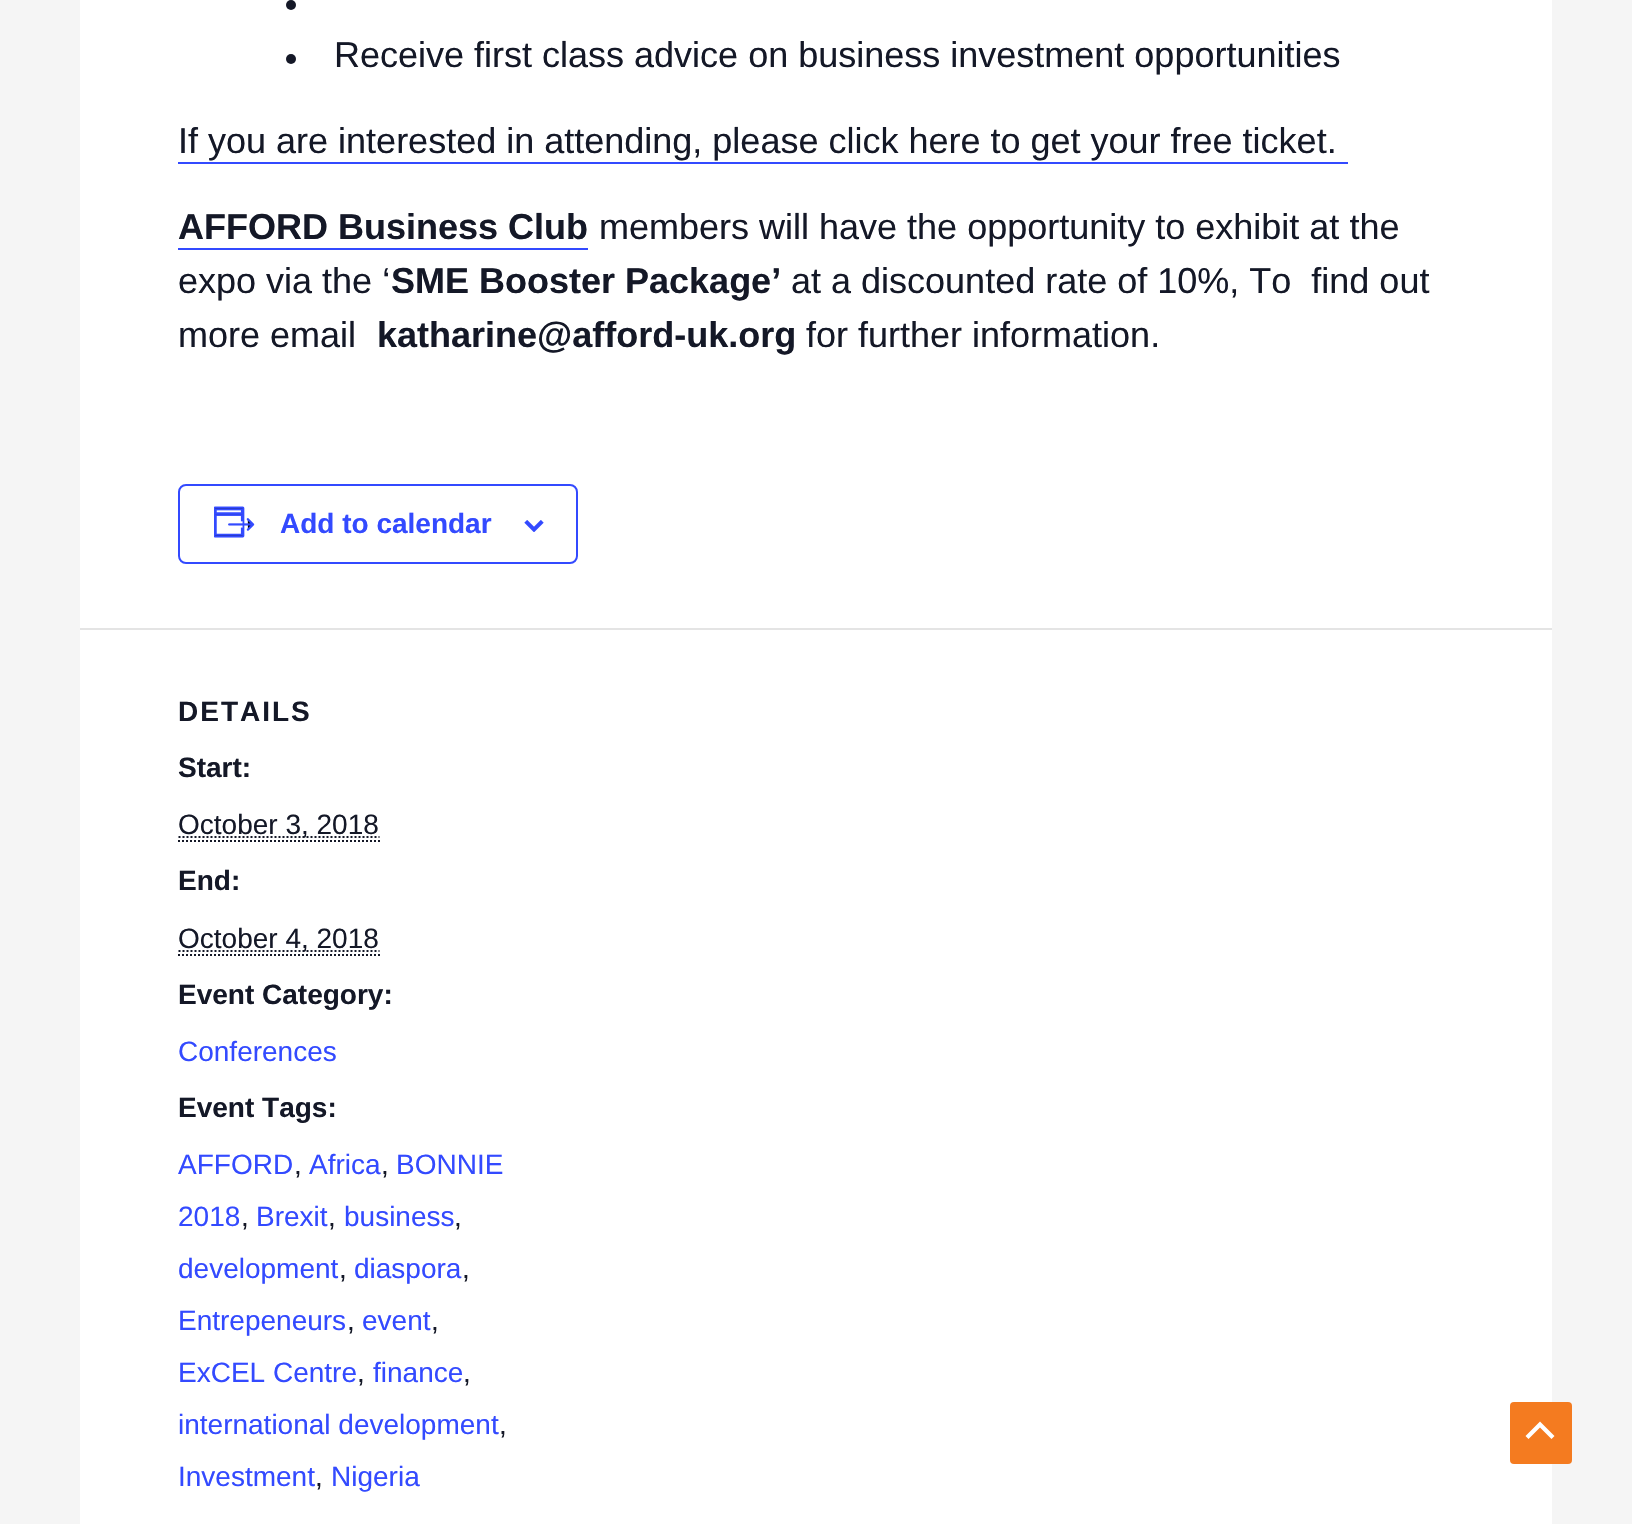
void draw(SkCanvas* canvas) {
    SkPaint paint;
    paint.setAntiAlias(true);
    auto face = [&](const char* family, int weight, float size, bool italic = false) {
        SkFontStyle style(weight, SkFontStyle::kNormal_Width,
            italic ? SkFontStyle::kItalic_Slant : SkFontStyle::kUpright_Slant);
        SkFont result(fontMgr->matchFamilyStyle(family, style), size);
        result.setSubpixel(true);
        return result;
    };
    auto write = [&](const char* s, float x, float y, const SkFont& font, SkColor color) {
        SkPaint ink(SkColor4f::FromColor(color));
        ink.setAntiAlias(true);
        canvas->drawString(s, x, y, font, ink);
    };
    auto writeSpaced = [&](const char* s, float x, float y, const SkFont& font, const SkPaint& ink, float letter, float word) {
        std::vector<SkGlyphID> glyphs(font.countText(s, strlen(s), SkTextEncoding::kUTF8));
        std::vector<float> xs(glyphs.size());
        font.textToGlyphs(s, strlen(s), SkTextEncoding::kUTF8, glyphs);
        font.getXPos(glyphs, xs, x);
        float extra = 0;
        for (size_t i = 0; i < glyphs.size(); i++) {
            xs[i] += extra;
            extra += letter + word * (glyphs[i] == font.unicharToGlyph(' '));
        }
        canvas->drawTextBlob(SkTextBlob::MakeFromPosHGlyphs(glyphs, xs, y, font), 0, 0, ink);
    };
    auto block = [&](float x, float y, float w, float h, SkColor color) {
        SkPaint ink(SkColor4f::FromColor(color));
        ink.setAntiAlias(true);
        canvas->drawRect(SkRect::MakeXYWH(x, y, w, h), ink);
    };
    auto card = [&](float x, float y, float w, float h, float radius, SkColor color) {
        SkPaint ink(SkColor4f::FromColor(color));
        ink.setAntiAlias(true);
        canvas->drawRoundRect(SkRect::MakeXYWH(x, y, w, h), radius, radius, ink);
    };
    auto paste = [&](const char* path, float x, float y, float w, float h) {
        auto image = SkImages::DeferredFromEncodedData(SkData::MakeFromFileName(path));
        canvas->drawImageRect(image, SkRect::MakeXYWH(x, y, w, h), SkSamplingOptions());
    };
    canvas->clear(SkColorSetRGB(245, 245, 245));
    block(80, 0, 1472, 1524, SK_ColorWHITE);
    paint.setColor(SkColorSetRGB(20, 24, 39));
    canvas->drawCircle(291, 5, 5, paint);
    canvas->drawCircle(291, 59, 5, paint);
    auto kFont1 = face("Liberation Sans", 400, 36);
    write("Receive first class advice on business investment opportunities", 334, 67, kFont1, SkColorSetRGB(20, 24, 39));
    write("If you are interested in attending, please click here to get your free ticket.", 178, 153, kFont1, SkColorSetRGB(20, 24, 39));
    block(178, 162, 1170, 2, SkColorSetRGB(51, 74, 255));
    auto kFont2 = face("Liberation Sans", 700, 36);
    write("AFFORD Business Club", 178, 239, kFont2, SkColorSetRGB(20, 24, 39));
    block(178, 248, 410, 2, SkColorSetRGB(51, 74, 255));
    write("members will have the opportunity to exhibit at the", 599, 239, kFont1, SkColorSetRGB(20, 24, 39));
    write("expo via the ‘", 178, 293, kFont1, SkColorSetRGB(20, 24, 39));
    write("SME Booster Package’", 391, 293, kFont2, SkColorSetRGB(20, 24, 39));
    write("at a discounted rate of 10%, To  find out", 791, 293, kFont1, SkColorSetRGB(20, 24, 39));
    write("more email", 178, 347, kFont1, SkColorSetRGB(20, 24, 39));
    write("katharine@afford-uk.org", 377, 347, kFont2, SkColorSetRGB(20, 24, 39));
    write("for further information.", 806, 347, kFont1, SkColorSetRGB(20, 24, 39));
    paint.setStyle(SkPaint::kStroke_Style);
    paint.setStrokeWidth(2);
    paint.setColor(SkColorSetRGB(51, 74, 255));
    canvas->drawRoundRect(SkRect::MakeXYWH(179, 485, 398, 78), 7, 7, paint);
    paste("pic1.png", 214, 506, 41, 32);
    auto kFont3 = face("Liberation Sans", 700, 28);
    write("Add to calendar", 280, 533, kFont3, SkColorSetRGB(51, 74, 255));
    paste("pic2.png", 524, 520, 20, 12);
    block(80, 628, 1472, 2, SkColorSetRGB(228, 228, 228));
    paint.setStyle(SkPaint::kFill_Style);
    paint.setColor(SkColorSetRGB(20, 24, 39));
    writeSpaced("DETAILS", 178, 721, kFont3, paint, 2, 0);
    write("Start:", 178, 777, kFont3, SkColorSetRGB(20, 24, 39));
    paint.setStyle(SkPaint::kStroke_Style);
    paint.setPathEffect(SkDashPathEffect::Make({{2, 2}}, 0));
    canvas->drawPath(SkPathBuilder().moveTo(178.5f, 837).lineTo(379.5f, 837).detach(), paint);
    paint.setPathEffect(nullptr);
    auto kFont4 = face("Liberation Sans", 400, 28);
    write("October 3, 2018", 178, 834, kFont4, SkColorSetRGB(20, 24, 39));
    paint.setPathEffect(SkDashPathEffect::Make({{2, 2}}, 0));
    canvas->drawPath(SkPathBuilder().moveTo(178, 841).lineTo(380, 841).detach(), paint);
    paint.setPathEffect(nullptr);
    write("End:", 178, 890, kFont3, SkColorSetRGB(20, 24, 39));
    paint.setPathEffect(SkDashPathEffect::Make({{2, 2}}, 0));
    canvas->drawPath(SkPathBuilder().moveTo(178.5f, 951).lineTo(379.5f, 951).detach(), paint);
    paint.setPathEffect(nullptr);
    write("October 4, 2018", 178, 948, kFont4, SkColorSetRGB(20, 24, 39));
    paint.setPathEffect(SkDashPathEffect::Make({{2, 2}}, 0));
    canvas->drawPath(SkPathBuilder().moveTo(178, 955).lineTo(380, 955).detach(), paint);
    paint.setPathEffect(nullptr);
    write("Event Category:", 178, 1004, kFont3, SkColorSetRGB(20, 24, 39));
    write("Conferences", 178, 1061, kFont4, SkColorSetRGB(51, 74, 255));
    write("Event Tags:", 178, 1117, kFont3, SkColorSetRGB(20, 24, 39));
    write("AFFORD", 178, 1174, kFont4, SkColorSetRGB(51, 74, 255));
    write(",", 294, 1174, kFont4, SkColorSetRGB(20, 24, 39));
    write("Africa", 309, 1174, kFont4, SkColorSetRGB(51, 74, 255));
    write(",", 381, 1174, kFont4, SkColorSetRGB(20, 24, 39));
    write("BONNIE", 396, 1174, kFont4, SkColorSetRGB(51, 74, 255));
    write("2018", 178, 1226, kFont4, SkColorSetRGB(51, 74, 255));
    write(",", 241, 1226, kFont4, SkColorSetRGB(20, 24, 39));
    write("Brexit", 256, 1226, kFont4, SkColorSetRGB(51, 74, 255));
    write(",", 328, 1226, kFont4, SkColorSetRGB(20, 24, 39));
    write("business", 344, 1226, kFont4, SkColorSetRGB(51, 74, 255));
    write(",", 454, 1226, kFont4, SkColorSetRGB(20, 24, 39));
    write("development", 178, 1278, kFont4, SkColorSetRGB(51, 74, 255));
    write(",", 339, 1278, kFont4, SkColorSetRGB(20, 24, 39));
    write("diaspora", 354, 1278, kFont4, SkColorSetRGB(51, 74, 255));
    write(",", 462, 1278, kFont4, SkColorSetRGB(20, 24, 39));
    write("Entrepeneurs", 178, 1330, kFont4, SkColorSetRGB(51, 74, 255));
    write(",", 347, 1330, kFont4, SkColorSetRGB(20, 24, 39));
    write("event", 362, 1330, kFont4, SkColorSetRGB(51, 74, 255));
    write(",", 431, 1330, kFont4, SkColorSetRGB(20, 24, 39));
    write("ExCEL Centre", 178, 1382, kFont4, SkColorSetRGB(51, 74, 255));
    write(",", 357, 1382, kFont4, SkColorSetRGB(20, 24, 39));
    write("finance", 373, 1382, kFont4, SkColorSetRGB(51, 74, 255));
    write(",", 463, 1382, kFont4, SkColorSetRGB(20, 24, 39));
    write("international development", 178, 1434, kFont4, SkColorSetRGB(51, 74, 255));
    write(",", 499, 1434, kFont4, SkColorSetRGB(20, 24, 39));
    write("Investment", 178, 1486, kFont4, SkColorSetRGB(51, 74, 255));
    write(",", 315, 1486, kFont4, SkColorSetRGB(20, 24, 39));
    write("Nigeria", 331, 1486, kFont4, SkColorSetRGB(51, 74, 255));
    card(1510, 1402, 62, 62, 4, SkColorSetRGB(244, 123, 32));
    paint.setStyle(SkPaint::kFill_Style);
    paint.setColor(SK_ColorWHITE);
    canvas->drawPath(SkPathBuilder().moveTo(1554.5f, 1436).lineTo(1540, 1421.5f).lineTo(1525.5f, 1436).lineTo(1528.5f, 1439).lineTo(1540, 1427.5f).lineTo(1551.5f, 1439).close().detach(), paint);
}
